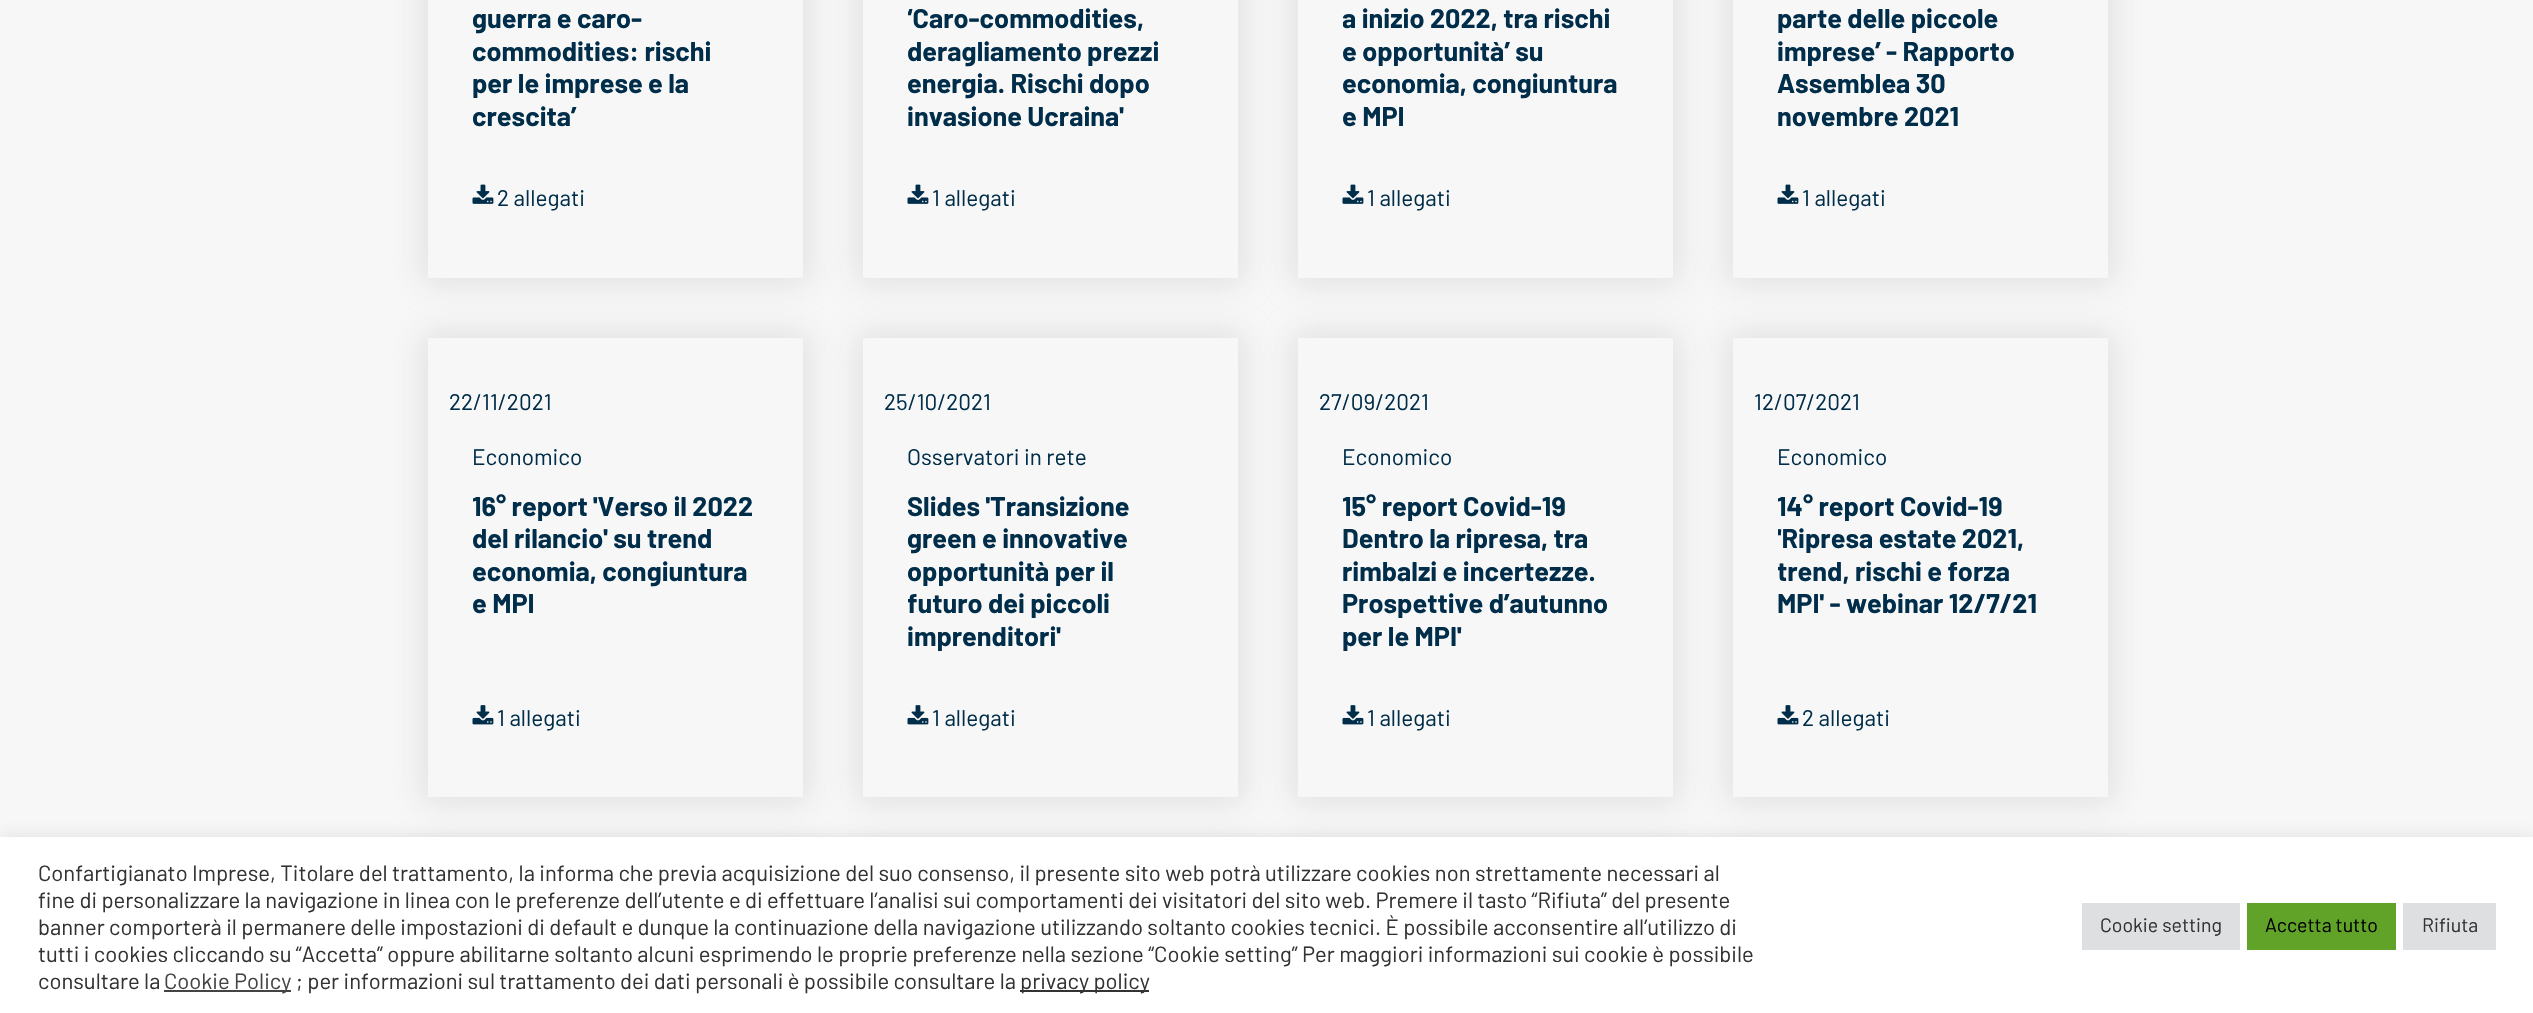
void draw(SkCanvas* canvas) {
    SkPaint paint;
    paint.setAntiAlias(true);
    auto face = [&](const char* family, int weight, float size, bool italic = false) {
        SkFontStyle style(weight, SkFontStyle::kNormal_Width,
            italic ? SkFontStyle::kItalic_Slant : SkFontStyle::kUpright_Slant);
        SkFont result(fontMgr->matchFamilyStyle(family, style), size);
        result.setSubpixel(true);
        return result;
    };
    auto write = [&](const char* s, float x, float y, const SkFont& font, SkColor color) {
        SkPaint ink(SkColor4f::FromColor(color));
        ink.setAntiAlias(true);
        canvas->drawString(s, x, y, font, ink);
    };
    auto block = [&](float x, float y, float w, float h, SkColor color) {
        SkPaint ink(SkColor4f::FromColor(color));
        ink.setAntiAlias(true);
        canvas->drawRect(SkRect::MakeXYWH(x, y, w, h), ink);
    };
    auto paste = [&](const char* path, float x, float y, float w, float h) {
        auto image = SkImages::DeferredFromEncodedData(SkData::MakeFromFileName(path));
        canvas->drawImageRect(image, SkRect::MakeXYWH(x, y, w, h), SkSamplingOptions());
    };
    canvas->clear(SkColorSetRGB(247, 247, 247));
    canvas->save();
    canvas->clipPath(SkPathBuilder(SkPathFillType::kEvenOdd).moveTo(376, 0).lineTo(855, 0).lineTo(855, 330).lineTo(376, 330).close().moveTo(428, -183).lineTo(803, -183).lineTo(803, 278).lineTo(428, 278).close().detach(), true);
    paint.setColor(SkColorSetARGB(102, 191, 191, 191));
    paint.setMaskFilter(SkMaskFilter::MakeBlur(kNormal_SkBlurStyle, 15));
    canvas->drawRect(SkRect::MakeXYWH(422, -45, 387, 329), paint);
    paint.setMaskFilter(nullptr);
    canvas->restore();
    canvas->save();
    canvas->clipRect(SkRect::MakeXYWH(473, 0, 285, 132));
    auto kFont1 = face("Barlow", 700, 27);
    write("guerra e caro-", 472, 28, kFont1, SkColorSetRGB(0, 46, 74));
    write("commodities: rischi", 472, 61, kFont1, SkColorSetRGB(0, 46, 74));
    canvas->restore();
    write("per le imprese e la", 472, 93, kFont1, SkColorSetRGB(0, 46, 74));
    canvas->save();
    canvas->clipRect(SkRect::MakeXYWH(473, 0, 285, 132));
    write("crescita’", 472, 126, kFont1, SkColorSetRGB(0, 46, 74));
    canvas->restore();
    paste("pic1.png", 472, 184, 22, 20);
    auto kFont2 = face("Barlow", 400, 22.5f);
    write("2 allegati", 497, 206, kFont2, SkColorSetRGB(0, 46, 74));
    canvas->save();
    canvas->clipPath(SkPathBuilder(SkPathFillType::kEvenOdd).moveTo(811, 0).lineTo(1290, 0).lineTo(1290, 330).lineTo(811, 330).close().moveTo(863, -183).lineTo(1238, -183).lineTo(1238, 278).lineTo(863, 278).close().detach(), true);
    paint.setMaskFilter(SkMaskFilter::MakeBlur(kNormal_SkBlurStyle, 15));
    canvas->drawRect(SkRect::MakeXYWH(857, -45, 387, 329), paint);
    paint.setMaskFilter(nullptr);
    canvas->restore();
    canvas->save();
    canvas->clipRect(SkRect::MakeXYWH(908, 0, 285, 132));
    write("‘Caro-commodities,", 907, 28, kFont1, SkColorSetRGB(0, 46, 74));
    write("deragliamento prezzi", 907, 61, kFont1, SkColorSetRGB(0, 46, 74));
    canvas->restore();
    write("energia. Rischi dopo", 907, 93, kFont1, SkColorSetRGB(0, 46, 74));
    write("invasione Ucraina'", 907, 126, kFont1, SkColorSetRGB(0, 46, 74));
    paste("pic1.png", 907, 184, 22, 20);
    write("1 allegati", 932, 206, kFont2, SkColorSetRGB(0, 46, 74));
    canvas->save();
    canvas->clipPath(SkPathBuilder(SkPathFillType::kEvenOdd).moveTo(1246, 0).lineTo(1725, 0).lineTo(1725, 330).lineTo(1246, 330).close().moveTo(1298, -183).lineTo(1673, -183).lineTo(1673, 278).lineTo(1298, 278).close().detach(), true);
    paint.setMaskFilter(SkMaskFilter::MakeBlur(kNormal_SkBlurStyle, 15));
    canvas->drawRect(SkRect::MakeXYWH(1292, -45, 387, 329), paint);
    paint.setMaskFilter(nullptr);
    canvas->restore();
    canvas->save();
    canvas->clipRect(SkRect::MakeXYWH(1343, 0, 285, 132));
    write("a inizio 2022, tra rischi", 1342, 28, kFont1, SkColorSetRGB(0, 46, 74));
    canvas->restore();
    write("e opportunità’ su", 1342, 61, kFont1, SkColorSetRGB(0, 46, 74));
    write("economia, congiuntura", 1342, 93, kFont1, SkColorSetRGB(0, 46, 74));
    write("e MPI", 1342, 126, kFont1, SkColorSetRGB(0, 46, 74));
    paste("pic1.png", 1342, 184, 22, 20);
    write("1 allegati", 1367, 206, kFont2, SkColorSetRGB(0, 46, 74));
    canvas->save();
    canvas->clipPath(SkPathBuilder(SkPathFillType::kEvenOdd).moveTo(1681, 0).lineTo(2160, 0).lineTo(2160, 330).lineTo(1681, 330).close().moveTo(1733, -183).lineTo(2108, -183).lineTo(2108, 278).lineTo(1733, 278).close().detach(), true);
    paint.setMaskFilter(SkMaskFilter::MakeBlur(kNormal_SkBlurStyle, 15));
    canvas->drawRect(SkRect::MakeXYWH(1727, -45, 387, 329), paint);
    paint.setMaskFilter(nullptr);
    canvas->restore();
    write("parte delle piccole", 1777, 28, kFont1, SkColorSetRGB(0, 46, 74));
    write("imprese’ - Rapporto", 1777, 61, kFont1, SkColorSetRGB(0, 46, 74));
    write("Assemblea 30", 1777, 93, kFont1, SkColorSetRGB(0, 46, 74));
    write("novembre 2021", 1777, 126, kFont1, SkColorSetRGB(0, 46, 74));
    paste("pic1.png", 1777, 184, 22, 20);
    write("1 allegati", 1802, 206, kFont2, SkColorSetRGB(0, 46, 74));
    canvas->save();
    canvas->clipPath(SkPathBuilder(SkPathFillType::kEvenOdd).moveTo(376, 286).lineTo(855, 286).lineTo(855, 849).lineTo(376, 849).close().moveTo(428, 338).lineTo(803, 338).lineTo(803, 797).lineTo(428, 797).close().detach(), true);
    paint.setMaskFilter(SkMaskFilter::MakeBlur(kNormal_SkBlurStyle, 15));
    canvas->drawRect(SkRect::MakeXYWH(422, 332, 387, 471), paint);
    paint.setMaskFilter(nullptr);
    canvas->restore();
    write("22/11/2021", 449, 410, kFont2, SkColorSetRGB(0, 46, 74));
    write("Economico", 472, 465, kFont2, SkColorSetRGB(0, 46, 74));
    canvas->save();
    canvas->clipRect(SkRect::MakeXYWH(473, 491, 285, 129));
    write("16° report 'Verso il 2022", 472, 516, kFont1, SkColorSetRGB(0, 46, 74));
    write("del rilancio' su trend", 472, 548, kFont1, SkColorSetRGB(0, 46, 74));
    canvas->restore();
    write("economia, congiuntura", 472, 581, kFont1, SkColorSetRGB(0, 46, 74));
    write("e MPI", 472, 613, kFont1, SkColorSetRGB(0, 46, 74));
    paste("pic2.png", 472, 705, 22, 20);
    write("1 allegati", 497, 726, kFont2, SkColorSetRGB(0, 46, 74));
    canvas->save();
    canvas->clipPath(SkPathBuilder(SkPathFillType::kEvenOdd).moveTo(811, 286).lineTo(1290, 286).lineTo(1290, 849).lineTo(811, 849).close().moveTo(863, 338).lineTo(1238, 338).lineTo(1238, 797).lineTo(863, 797).close().detach(), true);
    paint.setMaskFilter(SkMaskFilter::MakeBlur(kNormal_SkBlurStyle, 15));
    canvas->drawRect(SkRect::MakeXYWH(857, 332, 387, 471), paint);
    paint.setMaskFilter(nullptr);
    canvas->restore();
    write("25/10/2021", 884, 410, kFont2, SkColorSetRGB(0, 46, 74));
    write("Osservatori in rete", 907, 465, kFont2, SkColorSetRGB(0, 46, 74));
    canvas->save();
    canvas->clipRect(SkRect::MakeXYWH(908, 491, 285, 162));
    write("Slides 'Transizione", 907, 516, kFont1, SkColorSetRGB(0, 46, 74));
    write("green e innovative", 907, 548, kFont1, SkColorSetRGB(0, 46, 74));
    write("opportunità per il", 907, 581, kFont1, SkColorSetRGB(0, 46, 74));
    write("futuro dei piccoli", 907, 613, kFont1, SkColorSetRGB(0, 46, 74));
    canvas->restore();
    write("imprenditori'", 907, 646, kFont1, SkColorSetRGB(0, 46, 74));
    paste("pic2.png", 907, 705, 22, 20);
    write("1 allegati", 932, 726, kFont2, SkColorSetRGB(0, 46, 74));
    canvas->save();
    canvas->clipPath(SkPathBuilder(SkPathFillType::kEvenOdd).moveTo(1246, 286).lineTo(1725, 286).lineTo(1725, 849).lineTo(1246, 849).close().moveTo(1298, 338).lineTo(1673, 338).lineTo(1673, 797).lineTo(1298, 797).close().detach(), true);
    paint.setMaskFilter(SkMaskFilter::MakeBlur(kNormal_SkBlurStyle, 15));
    canvas->drawRect(SkRect::MakeXYWH(1292, 332, 387, 471), paint);
    paint.setMaskFilter(nullptr);
    canvas->restore();
    write("27/09/2021", 1319, 410, kFont2, SkColorSetRGB(0, 46, 74));
    write("Economico", 1342, 465, kFont2, SkColorSetRGB(0, 46, 74));
    canvas->save();
    canvas->clipRect(SkRect::MakeXYWH(1343, 491, 285, 162));
    write("15° report Covid-19", 1342, 516, kFont1, SkColorSetRGB(0, 46, 74));
    canvas->restore();
    write("Dentro la ripresa, tra", 1342, 548, kFont1, SkColorSetRGB(0, 46, 74));
    write("rimbalzi e incertezze.", 1342, 581, kFont1, SkColorSetRGB(0, 46, 74));
    write("Prospettive d’autunno", 1342, 613, kFont1, SkColorSetRGB(0, 46, 74));
    write("per le MPI'", 1342, 646, kFont1, SkColorSetRGB(0, 46, 74));
    paste("pic2.png", 1342, 705, 22, 20);
    write("1 allegati", 1367, 726, kFont2, SkColorSetRGB(0, 46, 74));
    canvas->save();
    canvas->clipPath(SkPathBuilder(SkPathFillType::kEvenOdd).moveTo(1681, 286).lineTo(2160, 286).lineTo(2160, 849).lineTo(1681, 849).close().moveTo(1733, 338).lineTo(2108, 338).lineTo(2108, 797).lineTo(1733, 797).close().detach(), true);
    paint.setMaskFilter(SkMaskFilter::MakeBlur(kNormal_SkBlurStyle, 15));
    canvas->drawRect(SkRect::MakeXYWH(1727, 332, 387, 471), paint);
    paint.setMaskFilter(nullptr);
    canvas->restore();
    write("12/07/2021", 1754, 410, kFont2, SkColorSetRGB(0, 46, 74));
    write("Economico", 1777, 465, kFont2, SkColorSetRGB(0, 46, 74));
    canvas->save();
    canvas->clipRect(SkRect::MakeXYWH(1778, 491, 285, 129));
    write("14° report Covid-19", 1777, 516, kFont1, SkColorSetRGB(0, 46, 74));
    write("'Ripresa estate 2021,", 1777, 548, kFont1, SkColorSetRGB(0, 46, 74));
    write("trend, rischi e forza", 1777, 581, kFont1, SkColorSetRGB(0, 46, 74));
    canvas->restore();
    write("MPI' - webinar 12/7/21", 1777, 613, kFont1, SkColorSetRGB(0, 46, 74));
    paste("pic2.png", 1777, 705, 22, 20);
    write("2 allegati", 1802, 726, kFont2, SkColorSetRGB(0, 46, 74));
    paint.setMaskFilter(SkMaskFilter::MakeBlur(kNormal_SkBlurStyle, 15));
    canvas->drawRect(SkRect::MakeXYWH(422, 851, 387, 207), paint);
    paint.setMaskFilter(nullptr);
    paint.setMaskFilter(SkMaskFilter::MakeBlur(kNormal_SkBlurStyle, 15));
    canvas->drawRect(SkRect::MakeXYWH(857, 851, 387, 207), paint);
    paint.setMaskFilter(nullptr);
    paint.setMaskFilter(SkMaskFilter::MakeBlur(kNormal_SkBlurStyle, 15));
    canvas->drawRect(SkRect::MakeXYWH(1292, 851, 387, 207), paint);
    paint.setMaskFilter(nullptr);
    paint.setMaskFilter(SkMaskFilter::MakeBlur(kNormal_SkBlurStyle, 15));
    canvas->drawRect(SkRect::MakeXYWH(1727, 851, 387, 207), paint);
    paint.setMaskFilter(nullptr);
    paint.setColor(SkColorSetARGB(77, 172, 171, 171));
    paint.setMaskFilter(SkMaskFilter::MakeBlur(kNormal_SkBlurStyle, 7.5f));
    canvas->drawRect(SkRect::MakeXYWH(0, 836, 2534, 177), paint);
    paint.setMaskFilter(nullptr);
    block(0, 837, 2533, 176, SK_ColorWHITE);
    auto kFont3 = face("Barlow", 400, 22);
    write("Confartigianato Imprese, Titolare del trattamento, la informa che previa acquisizione del suo consenso, il presente sito web potrà utilizzare cookies non strettamente necessari al", 38, 881, kFont3, SkColorSetRGB(51, 51, 51));
    write("fine di personalizzare la navigazione in linea con le preferenze dell’utente e di effettuare l’analisi sui comportamenti dei visitatori del sito web. Premere il tasto “Rifiuta” del presente", 38, 908, kFont3, SkColorSetRGB(51, 51, 51));
    write("banner comporterà il permanere delle impostazioni di default e dunque la continuazione della navigazione utilizzando soltanto cookies tecnici. È possibile acconsentire all’utilizzo di", 38, 935, kFont3, SkColorSetRGB(51, 51, 51));
    write("tutti i cookies cliccando su “Accetta” oppure abilitarne soltanto alcuni esprimendo le proprie preferenze nella sezione “Cookie setting” Per maggiori informazioni sui cookie è possibile", 38, 962, kFont3, SkColorSetRGB(51, 51, 51));
    write("consultare la", 38, 989, kFont3, SkColorSetRGB(51, 51, 51));
    block(164, 990, 127, 2, SkColorSetRGB(68, 68, 68));
    write("Cookie Policy", 164, 989, kFont3, SkColorSetRGB(68, 68, 68));
    write("; per informazioni sul trattamento dei dati personali è possibile consultare la", 296, 989, kFont3, SkColorSetRGB(51, 51, 51));
    block(1020, 990, 129, 2, SkColorSetRGB(51, 51, 51));
    write("privacy policy", 1020, 989, kFont3, SkColorSetRGB(51, 51, 51));
    block(2082, 903, 158, 47, SkColorSetRGB(222, 223, 224));
    auto kFont4 = face("Barlow", 400, 19.5f);
    write("Cookie setting", 2100, 932, kFont4, SkColorSetRGB(51, 51, 51));
    block(2247, 903, 149, 47, SkColorSetRGB(97, 162, 41));
    write("Accetta tutto", 2265, 932, kFont4, SK_ColorBLACK);
    block(2403, 903, 93, 47, SkColorSetRGB(222, 223, 224));
    write("Rifiuta", 2422, 932, kFont4, SkColorSetRGB(51, 51, 51));
}
